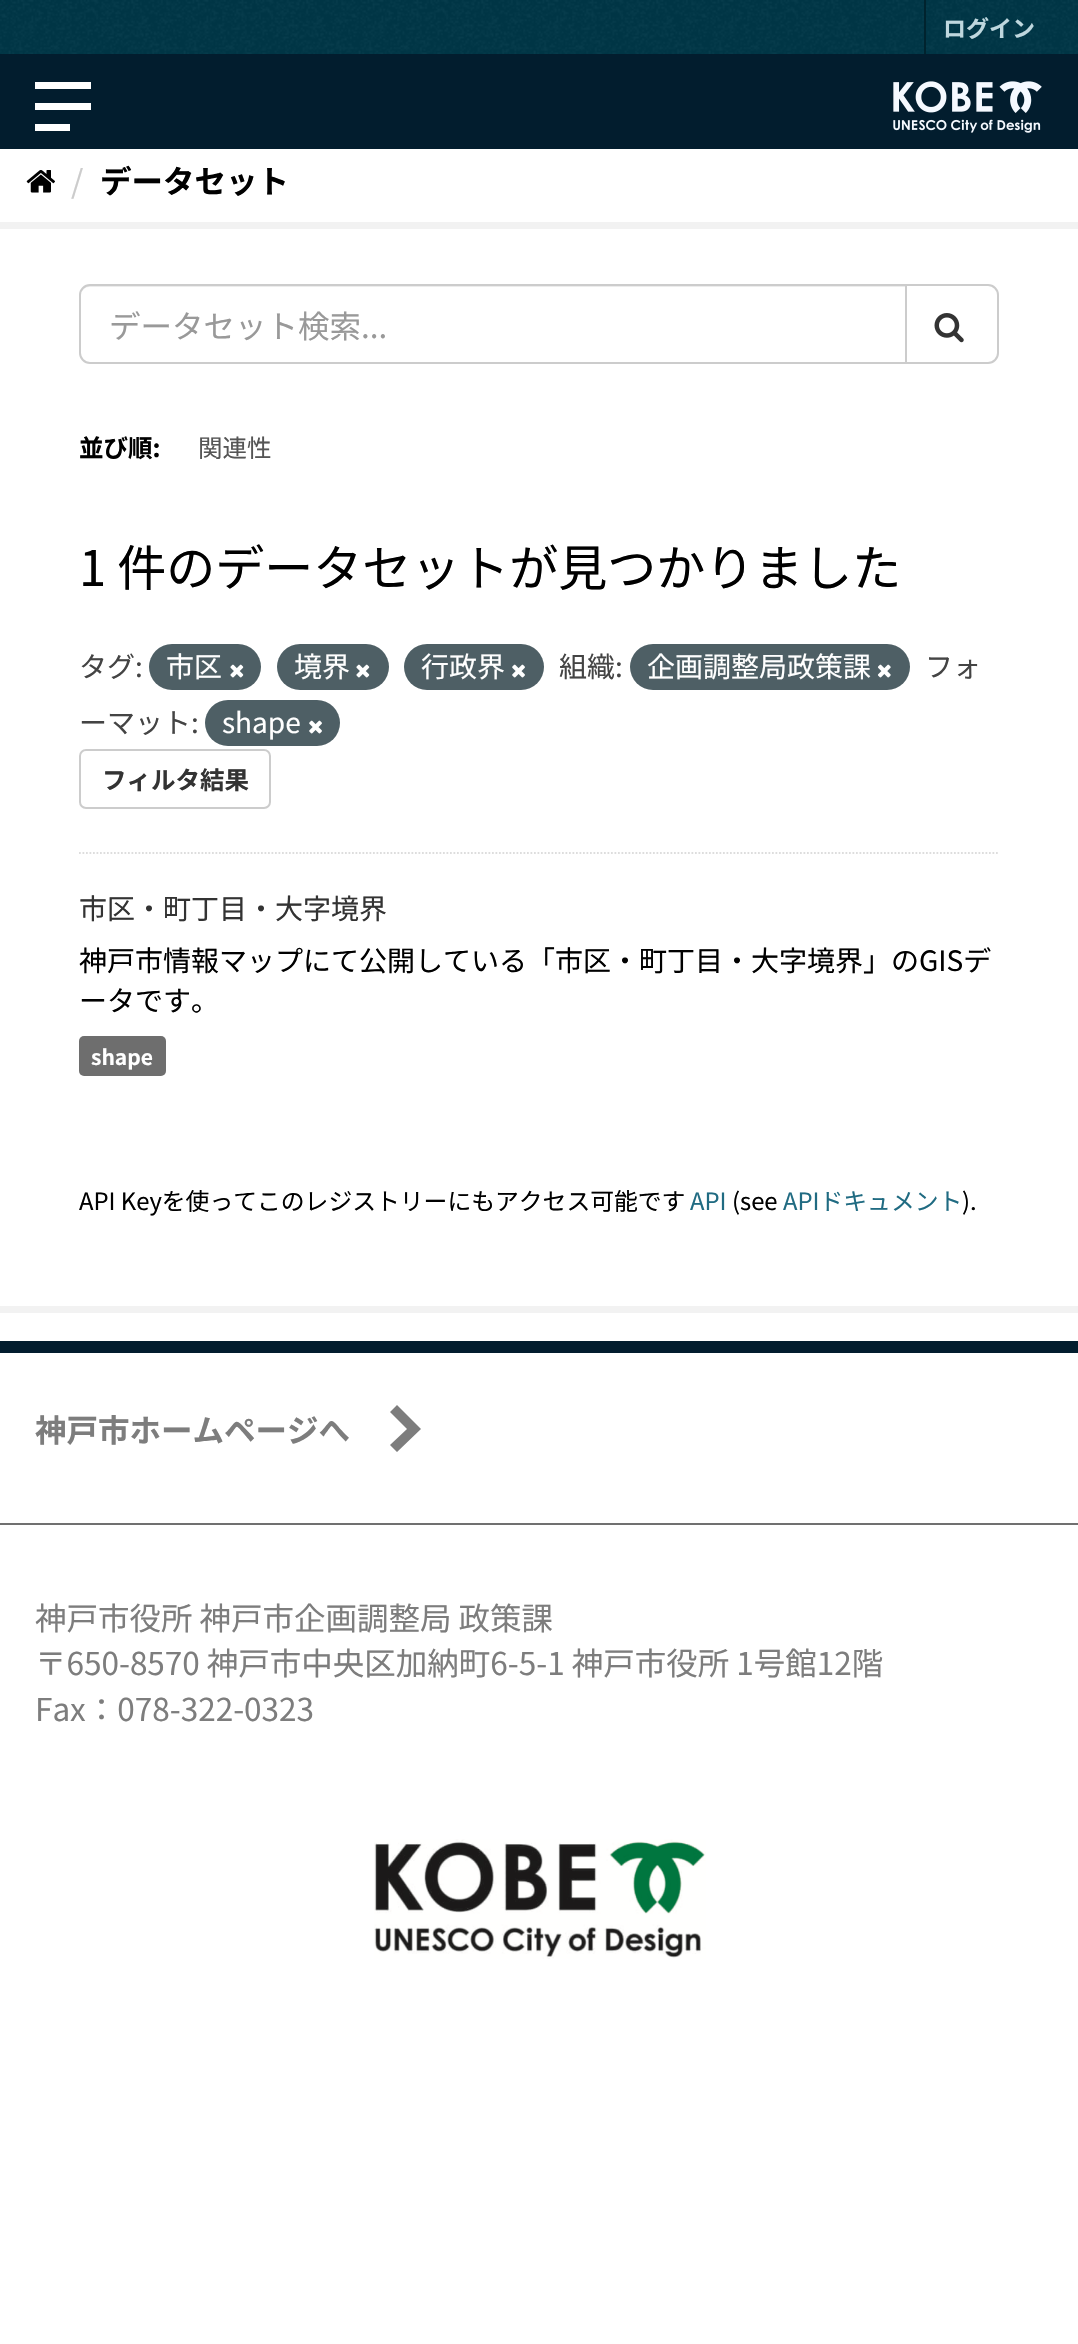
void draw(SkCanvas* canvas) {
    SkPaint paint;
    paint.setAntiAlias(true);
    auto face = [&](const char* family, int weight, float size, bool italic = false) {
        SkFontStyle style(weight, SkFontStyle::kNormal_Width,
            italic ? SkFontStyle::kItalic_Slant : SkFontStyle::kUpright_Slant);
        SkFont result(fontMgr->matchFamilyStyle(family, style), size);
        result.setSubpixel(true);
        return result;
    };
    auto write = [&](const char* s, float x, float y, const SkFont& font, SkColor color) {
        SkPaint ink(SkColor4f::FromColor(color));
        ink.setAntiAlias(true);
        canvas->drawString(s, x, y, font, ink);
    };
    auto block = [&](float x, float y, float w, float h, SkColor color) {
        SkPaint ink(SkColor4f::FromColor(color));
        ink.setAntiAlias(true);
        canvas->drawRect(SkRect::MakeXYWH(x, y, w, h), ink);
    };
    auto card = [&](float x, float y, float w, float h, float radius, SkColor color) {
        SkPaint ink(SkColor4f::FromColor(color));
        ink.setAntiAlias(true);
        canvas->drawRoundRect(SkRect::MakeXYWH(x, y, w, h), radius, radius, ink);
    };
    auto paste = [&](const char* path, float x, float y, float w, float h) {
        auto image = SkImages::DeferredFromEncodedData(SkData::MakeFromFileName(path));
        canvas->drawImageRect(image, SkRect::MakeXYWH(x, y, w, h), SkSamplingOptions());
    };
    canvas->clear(SK_ColorWHITE);
    block(0, 0, 1078, 54, SkColorSetRGB(0, 54, 71));
    paste("pic1.png", 0, 0, 1078, 54);
    block(924, 0, 2, 54, SkColorSetRGB(0, 35, 46));
    auto kFont1 = face("Noto Sans JP", 700, 23);
    write("ログイン", 943, 37, kFont1, SkColorSetRGB(191, 215, 222));
    block(0, 54, 1078, 95, SkColorSetRGB(2, 29, 46));
    block(35, 82, 56, 7, SK_ColorWHITE);
    block(35, 103, 56, 7, SK_ColorWHITE);
    block(35, 124, 35, 7, SK_ColorWHITE);
    paste("pic2.png", 893, 81, 149, 52);
    paste("pic3.png", 26, 170, 29, 23);
    auto kFont2 = face("Noto Sans JP", 400, 31.5f);
    write("/", 71, 193, kFont2, SkColorSetRGB(204, 204, 204));
    auto kFont3 = face("Noto Sans JP", 700, 31.5f);
    write("データセット", 100, 193, kFont3, SK_ColorBLACK);
    paint.setStyle(SkPaint::kStroke_Style);
    paint.setStrokeWidth(7);
    paint.setColor(SkColorSetRGB(242, 242, 242));
    canvas->drawRect(SkRect::MakeXYWH(-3.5f, 225.5f, 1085, 1084), paint);
    paint.setStrokeWidth(1.8f);
    paint.setColor(SkColorSetRGB(221, 221, 221));
    paint.setPathEffect(SkDashPathEffect::Make({{1.75f, 1.75f}}, 0));
    canvas->drawPath(SkPathBuilder().moveTo(79, 853).lineTo(999, 853).detach(), paint);
    paint.setPathEffect(nullptr);
    paint.setStyle(SkPaint::kFill_Style);
    paint.setColor(SkColorSetRGB(236, 236, 236));
    canvas->drawPath(SkPathBuilder().moveTo(89, 287).lineTo(905, 287).lineTo(905, 285).lineTo(90, 285).cubicTo(86, 285, 83, 287, 82, 291).cubicTo(83, 289, 86, 287, 89, 287).close().detach(), paint);
    paint.setStyle(SkPaint::kStroke_Style);
    paint.setStrokeWidth(2);
    paint.setColor(SkColorSetRGB(204, 204, 204));
    canvas->drawPath(SkPathBuilder().moveTo(90, 285).lineTo(906, 285).lineTo(906, 363).lineTo(90, 363).cubicTo(84.5f, 363, 80, 358.5f, 80, 353).lineTo(80, 295).cubicTo(80, 289.5f, 84.5f, 285, 90, 285).close().detach(), paint);
    write("データセット検索...", 109, 338, kFont2, SkColorSetRGB(153, 153, 153));
    paint.setStyle(SkPaint::kFill_Style);
    paint.setColor(SK_ColorWHITE);
    canvas->drawPath(SkPathBuilder().moveTo(906, 285).lineTo(988, 285).cubicTo(993.5f, 285, 998, 289.5f, 998, 295).lineTo(998, 353).cubicTo(998, 358.5f, 993.5f, 363, 988, 363).lineTo(906, 363).close().detach(), paint);
    paint.setStyle(SkPaint::kStroke_Style);
    paint.setColor(SkColorSetRGB(204, 204, 204));
    canvas->drawPath(SkPathBuilder().moveTo(906, 285).lineTo(988, 285).cubicTo(993.5f, 285, 998, 289.5f, 998, 295).lineTo(998, 353).cubicTo(998, 358.5f, 993.5f, 363, 988, 363).lineTo(906, 363).close().detach(), paint);
    paste("pic4.png", 934, 313, 30, 30);
    auto kFont4 = face("Noto Sans JP", 700, 24.5f);
    write("並び順:", 79, 457, kFont4, SK_ColorBLACK);
    auto kFont5 = face("Noto Sans JP", 400, 24.5f);
    write("関連性", 198, 457, kFont5, SkColorSetRGB(85, 85, 85));
    auto kFont6 = face("Noto Sans JP", 400, 49);
    write("1 件のデータセットが見つかりました", 79, 586, kFont6, SK_ColorBLACK);
    auto kFont7 = face("Noto Sans JP", 400, 28);
    write("タグ:", 79, 677, kFont7, SkColorSetRGB(68, 68, 68));
    card(149, 644, 112, 46, 23, SkColorSetRGB(78, 95, 101));
    write("市区", 166, 677, kFont7, SK_ColorWHITE);
    paste("pic5.png", 230, 664, 14, 14);
    card(277, 644, 112, 46, 23, SkColorSetRGB(78, 95, 101));
    write("境界", 294, 677, kFont7, SK_ColorWHITE);
    paste("pic6.png", 356, 664, 14, 14);
    card(404, 644, 140, 46, 23, SkColorSetRGB(78, 95, 101));
    write("行政界", 421, 677, kFont7, SK_ColorWHITE);
    paste("pic7.png", 512, 664, 13, 14);
    write("組織:", 559, 677, kFont7, SkColorSetRGB(68, 68, 68));
    card(630, 644, 280, 46, 23, SkColorSetRGB(78, 95, 101));
    write("企画調整局政策課", 647, 677, kFont7, SK_ColorWHITE);
    paste("pic8.png", 877, 664, 14, 14);
    write("フォ", 925, 677, kFont7, SkColorSetRGB(68, 68, 68));
    write("ーマット:", 79, 733, kFont7, SkColorSetRGB(68, 68, 68));
    card(205, 700, 135, 46, 23, SkColorSetRGB(78, 95, 101));
    write("shape", 222, 733, kFont7, SK_ColorWHITE);
    paste("pic7.png", 309, 720, 13, 14);
    canvas->drawRoundRect(SkRect::MakeXYWH(80, 750, 190, 58), 6, 6, paint);
    write("フィルタ結果", 102, 789, kFont4, SkColorSetRGB(51, 51, 51));
    write("市区・町丁目・大字境界", 79, 919, kFont7, SkColorSetRGB(51, 51, 51));
    write("神戸市情報マップにて公開している「市区・町丁目・大字境界」のGISデ", 79, 971, kFont7, SK_ColorBLACK);
    write("ータです。", 79, 1011, kFont7, SK_ColorBLACK);
    card(79, 1036, 87, 40, 5, SkColorSetRGB(110, 110, 110));
    auto kFont8 = face("Noto Sans JP", 700, 21);
    write("shape", 91, 1065, kFont8, SK_ColorWHITE);
    auto kFont9 = face("Noto Sans JP", 400, 23.8f);
    write("API Keyを使ってこのレジストリーにもアクセス可能です", 79, 1210, kFont9, SK_ColorBLACK);
    write("API", 690, 1210, kFont9, SkColorSetRGB(32, 107, 130));
    write("(see", 732, 1210, kFont9, SK_ColorBLACK);
    write("APIドキュメント", 783, 1210, kFont9, SkColorSetRGB(32, 107, 130));
    write(").", 962, 1210, kFont9, SK_ColorBLACK);
    block(0, 1341, 1078, 12, SkColorSetRGB(2, 29, 46));
    paint.setStyle(SkPaint::kFill_Style);
    paint.setColor(SkColorSetRGB(125, 125, 125));
    canvas->drawPath(SkPathBuilder().moveTo(421, 1429).lineTo(397, 1452).lineTo(390, 1445).lineTo(407, 1429).lineTo(390, 1412).lineTo(397, 1405).close().detach(), paint);
    write("神戸市ホームページへ", 35, 1442, kFont3, SkColorSetRGB(125, 125, 125));
    block(0, 1523, 1078, 2, SkColorSetRGB(112, 112, 112));
    write("神戸市役所 神戸市企画調整局 政策課", 35, 1630, kFont2, SkColorSetRGB(125, 125, 125));
    write("〒650-8570 神戸市中央区加納町6-5-1 神戸市役所 1号館12階", 35, 1675, kFont2, SkColorSetRGB(125, 125, 125));
    write("Fax：078-322-0323", 35, 1721, kFont2, SkColorSetRGB(125, 125, 125));
    paste("pic9.png", 374, 1839, 332, 120);
}
